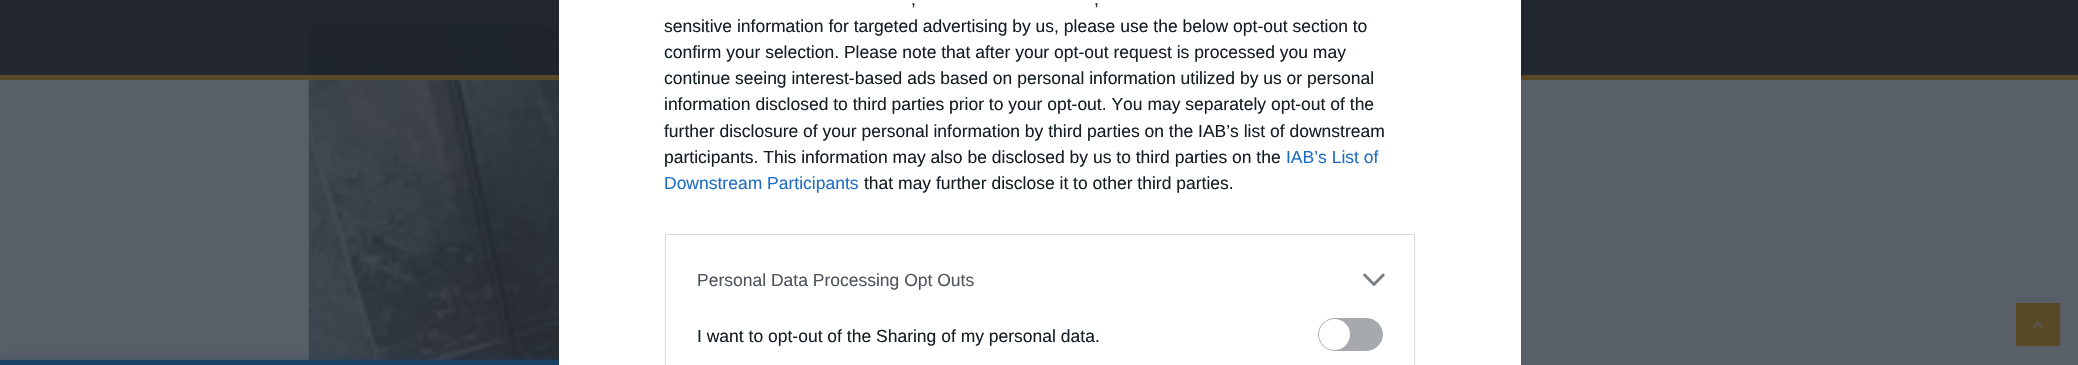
void draw(SkCanvas* canvas) {
    SkPaint paint;
    paint.setAntiAlias(true);
    auto face = [&](const char* family, int weight, float size, bool italic = false) {
        SkFontStyle style(weight, SkFontStyle::kNormal_Width,
            italic ? SkFontStyle::kItalic_Slant : SkFontStyle::kUpright_Slant);
        SkFont result(fontMgr->matchFamilyStyle(family, style), size);
        result.setSubpixel(true);
        return result;
    };
    auto write = [&](const char* s, float x, float y, const SkFont& font, SkColor color) {
        SkPaint ink(SkColor4f::FromColor(color));
        ink.setAntiAlias(true);
        canvas->drawString(s, x, y, font, ink);
    };
    auto block = [&](float x, float y, float w, float h, SkColor color) {
        SkPaint ink(SkColor4f::FromColor(color));
        ink.setAntiAlias(true);
        canvas->drawRect(SkRect::MakeXYWH(x, y, w, h), ink);
    };
    auto paste = [&](const char* path, float x, float y, float w, float h) {
        auto image = SkImages::DeferredFromEncodedData(SkData::MakeFromFileName(path));
        canvas->drawImageRect(image, SkRect::MakeXYWH(x, y, w, h), SkSamplingOptions());
    };
    canvas->clear(SkColorSetRGB(89, 95, 103));
    paste("pic1.png", 308, 25, 251, 335);
    block(0, 0, 2078, 75, SkColorSetARGB(242, 29, 35, 43));
    block(0, 75, 2078, 5, SkColorSetRGB(89, 73, 39));
    block(2016, 303, 44, 43, SkColorSetRGB(89, 73, 39));
    paste("pic2.png", 2033, 322, 10, 6);
    paint.setColor(SkColorSetARGB(179, 25, 65, 103));
    paint.setMaskFilter(SkMaskFilter::MakeBlur(kNormal_SkBlurStyle, 6));
    canvas->drawRect(SkRect::MakeXYWH(0, 360, 1241, 5), paint);
    paint.setMaskFilter(nullptr);
    block(559, 0, 962, 365, SK_ColorWHITE);
    auto kFont1 = face("Liberation Sans", 400, 17.5f);
    write(",", 911, 5, kFont1, SkColorSetRGB(20, 30, 35));
    write(",", 1094, 5, kFont1, SkColorSetRGB(20, 30, 35));
    write("sensitive information for targeted advertising by us, please use the below opt-out section to", 664, 32, kFont1, SkColorSetRGB(20, 30, 35));
    write("confirm your selection. Please note that after your opt-out request is processed you may", 664, 58, kFont1, SkColorSetRGB(20, 30, 35));
    write("continue seeing interest-based ads based on personal information utilized by us or personal", 664, 84, kFont1, SkColorSetRGB(20, 30, 35));
    write("information disclosed to third parties prior to your opt-out. You may separately opt-out of the", 664, 110, kFont1, SkColorSetRGB(20, 30, 35));
    write("further disclosure of your personal information by third parties on the IAB’s list of downstream", 664, 137, kFont1, SkColorSetRGB(20, 30, 35));
    write("participants. This information may also be disclosed by us to third parties on the", 664, 163, kFont1, SkColorSetRGB(20, 30, 35));
    write("IAB’s List of", 1286, 163, kFont1, SkColorSetRGB(32, 109, 197));
    write("Downstream Participants", 664, 189, kFont1, SkColorSetRGB(32, 109, 197));
    write("that may further disclose it to other third parties.", 864, 189, kFont1, SkColorSetRGB(20, 30, 35));
    paint.setStyle(SkPaint::kStroke_Style);
    paint.setStrokeWidth(1);
    paint.setColor(SkColorSetRGB(216, 216, 216));
    canvas->drawRect(SkRect::MakeXYWH(665.5f, 234.5f, 749, 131), paint);
    write("Personal Data Processing Opt Outs", 697, 286, kFont1, SkColorSetRGB(77, 84, 93));
    paste("pic3.png", 1363, 273, 22, 13);
    write("I want to opt-out of the Sharing of my personal data.", 697, 342, kFont1, SkColorSetRGB(20, 30, 35));
    paint.setStyle(SkPaint::kFill_Style);
    paint.setColor(SkColorSetRGB(166, 169, 174));
    canvas->drawRoundRect(SkRect::MakeXYWH(1318.5f, 318.5f, 64, 32), 16, 16, paint);
    paint.setStyle(SkPaint::kStroke_Style);
    canvas->drawRoundRect(SkRect::MakeXYWH(1318.5f, 318.5f, 64, 32), 16, 16, paint);
    paint.setStyle(SkPaint::kFill_Style);
    paint.setColor(SK_ColorWHITE);
    canvas->drawCircle(1334.5f, 334.5f, 15.5f, paint);
    block(0, 360, 559, 5, SkColorSetRGB(25, 65, 103));
}
